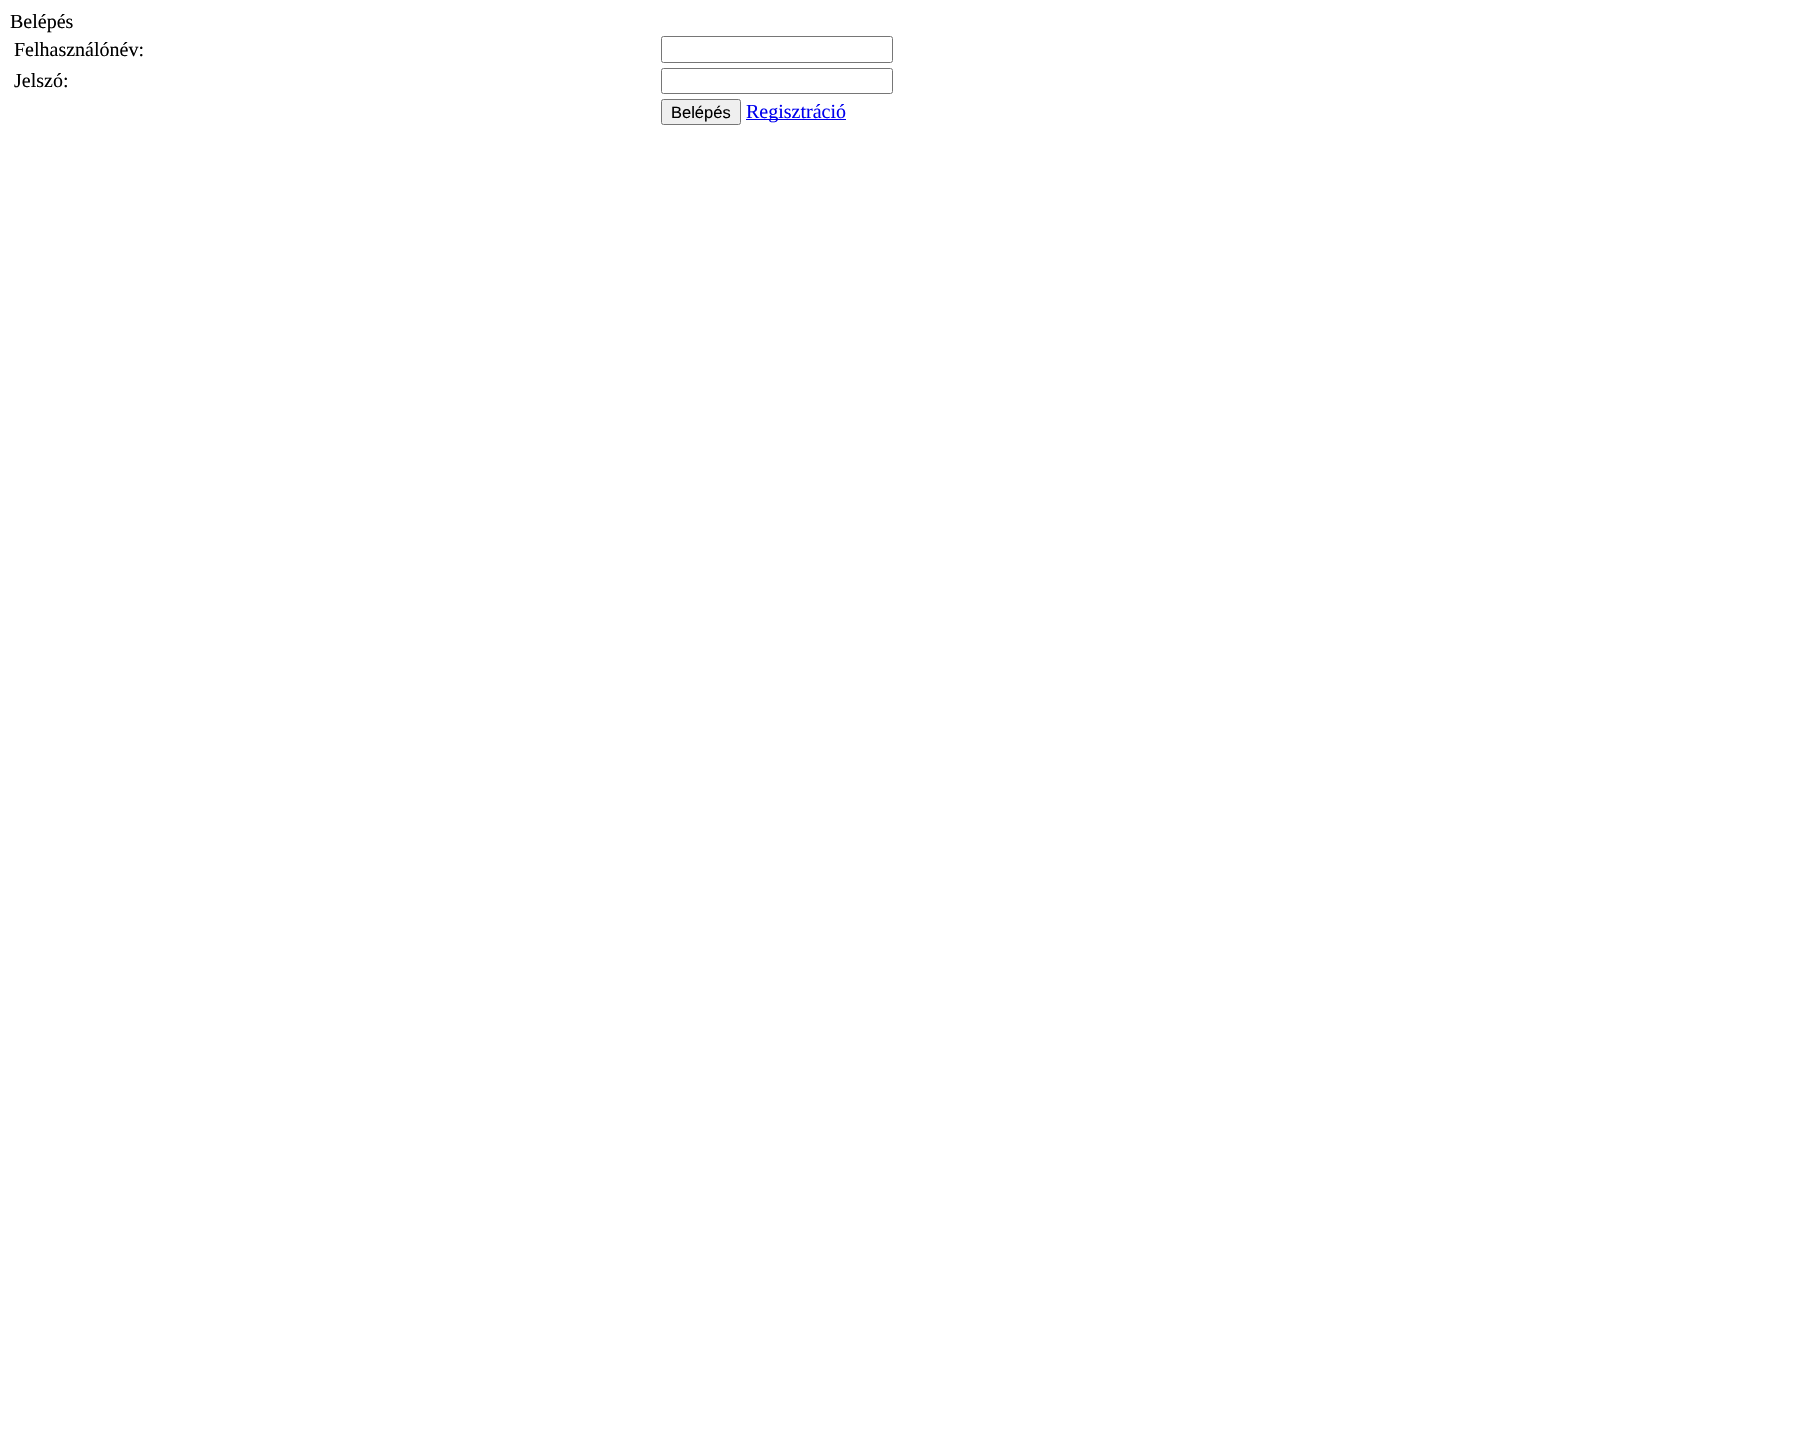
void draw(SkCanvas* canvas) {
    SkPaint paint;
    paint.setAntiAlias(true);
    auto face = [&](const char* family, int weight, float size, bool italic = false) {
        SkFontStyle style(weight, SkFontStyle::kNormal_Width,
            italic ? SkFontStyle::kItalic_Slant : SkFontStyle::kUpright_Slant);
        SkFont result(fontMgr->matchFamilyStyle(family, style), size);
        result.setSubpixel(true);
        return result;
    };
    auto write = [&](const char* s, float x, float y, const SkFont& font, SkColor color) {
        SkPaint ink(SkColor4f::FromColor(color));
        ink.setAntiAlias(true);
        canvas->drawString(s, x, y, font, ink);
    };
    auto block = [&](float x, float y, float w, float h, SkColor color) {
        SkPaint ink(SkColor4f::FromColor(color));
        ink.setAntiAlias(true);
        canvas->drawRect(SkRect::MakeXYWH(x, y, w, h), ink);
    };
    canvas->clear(SK_ColorWHITE);
    auto kFont1 = face("Liberation Serif", 400, 20);
    write("Belépés", 10, 28, kFont1, SK_ColorBLACK);
    write("Felhasználónév:", 14, 56, kFont1, SK_ColorBLACK);
    paint.setStyle(SkPaint::kStroke_Style);
    paint.setStrokeWidth(1);
    paint.setColor(SkColorSetRGB(118, 118, 118));
    canvas->drawRoundRect(SkRect::MakeXYWH(661.5f, 36.5f, 231, 26), 2, 2, paint);
    write("Jelszó:", 14, 87, kFont1, SK_ColorBLACK);
    canvas->drawRoundRect(SkRect::MakeXYWH(661.5f, 68.5f, 231, 25), 2, 2, paint);
    paint.setStyle(SkPaint::kFill_Style);
    paint.setColor(SkColorSetRGB(239, 239, 239));
    canvas->drawRoundRect(SkRect::MakeXYWH(661.5f, 99.5f, 79, 25), 2, 2, paint);
    paint.setStyle(SkPaint::kStroke_Style);
    paint.setColor(SkColorSetRGB(118, 118, 118));
    canvas->drawRoundRect(SkRect::MakeXYWH(661.5f, 99.5f, 79, 25), 2, 2, paint);
    auto kFont2 = face("Liberation Sans", 400, 16.5f);
    write("Belépés", 671, 118, kFont2, SK_ColorBLACK);
    block(746, 119, 100, 1, SkColorSetRGB(0, 0, 238));
    write("Regisztráció", 746, 118, kFont1, SkColorSetRGB(0, 0, 238));
}
